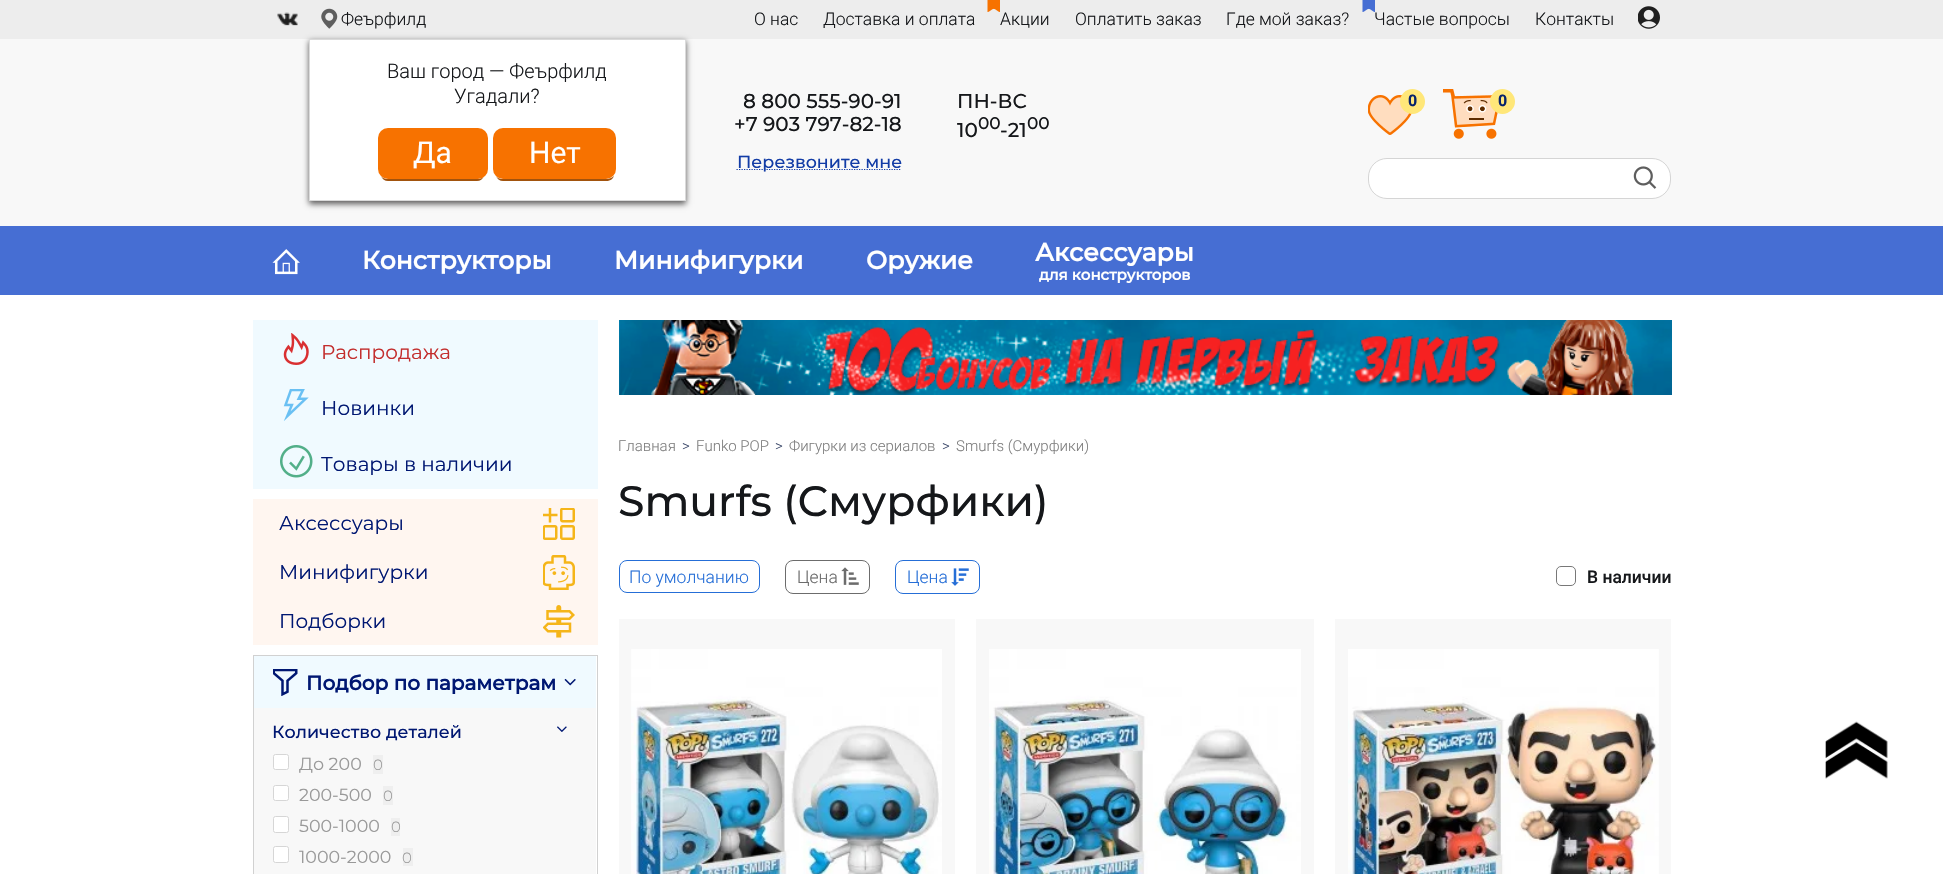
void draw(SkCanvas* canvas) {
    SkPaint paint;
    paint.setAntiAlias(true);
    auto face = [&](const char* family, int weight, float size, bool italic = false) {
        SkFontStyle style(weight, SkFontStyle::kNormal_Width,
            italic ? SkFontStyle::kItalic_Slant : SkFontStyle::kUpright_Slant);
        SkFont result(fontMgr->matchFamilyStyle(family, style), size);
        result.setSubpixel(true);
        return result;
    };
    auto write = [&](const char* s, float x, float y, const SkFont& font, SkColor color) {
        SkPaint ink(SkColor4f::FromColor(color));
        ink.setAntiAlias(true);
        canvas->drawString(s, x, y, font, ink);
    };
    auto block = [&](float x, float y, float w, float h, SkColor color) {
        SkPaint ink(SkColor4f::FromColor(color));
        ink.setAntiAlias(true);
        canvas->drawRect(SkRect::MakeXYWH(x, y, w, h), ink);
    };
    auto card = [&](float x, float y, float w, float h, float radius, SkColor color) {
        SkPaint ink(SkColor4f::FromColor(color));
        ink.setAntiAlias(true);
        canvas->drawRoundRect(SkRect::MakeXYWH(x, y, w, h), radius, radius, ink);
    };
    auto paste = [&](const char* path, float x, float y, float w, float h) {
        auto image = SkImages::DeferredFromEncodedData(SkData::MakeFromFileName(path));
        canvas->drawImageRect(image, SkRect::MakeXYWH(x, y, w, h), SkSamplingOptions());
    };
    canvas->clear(SK_ColorWHITE);
    block(0, 0, 1943, 39, SkColorSetRGB(237, 237, 237));
    paste("pic1.png", 277, 12, 21, 14);
    paste("pic2.png", 321, 8, 17, 21);
    auto kFont1 = face("Roboto", 300, 17.5f);
    write("Феърфилд", 341, 25, kFont1, SkColorSetRGB(21, 23, 26));
    block(0, 39, 1943, 187, SkColorSetRGB(248, 248, 248));
    paint.setColor(SkColorSetRGB(91, 90, 90));
    paint.setMaskFilter(SkMaskFilter::MakeBlur(kNormal_SkBlurStyle, 3));
    canvas->drawRect(SkRect::MakeXYWH(309, 41, 377, 163), paint);
    paint.setMaskFilter(nullptr);
    paint.setColor(SK_ColorWHITE);
    canvas->drawRect(SkRect::MakeXYWH(309.5f, 39.5f, 376, 161), paint);
    paint.setStyle(SkPaint::kStroke_Style);
    paint.setStrokeWidth(1);
    paint.setColor(SkColorSetRGB(218, 218, 218));
    canvas->drawRect(SkRect::MakeXYWH(309.5f, 39.5f, 376, 161), paint);
    auto kFont2 = face("Roboto", 300, 20);
    write("Ваш город — Феърфилд", 387, 78, kFont2, SkColorSetRGB(21, 23, 26));
    write("Угадали?", 454, 103, kFont2, SkColorSetRGB(21, 23, 26));
    paint.setStyle(SkPaint::kFill_Style);
    paint.setColor(SkColorSetRGB(162, 83, 13));
    canvas->drawPath(SkPathBuilder().moveTo(381, 176).cubicTo(382, 179, 385, 181, 388, 181).lineTo(477, 181).cubicTo(480, 181, 483, 179, 484, 176).cubicTo(483, 178, 480, 179, 478, 179).lineTo(388, 179).cubicTo(385, 179, 382, 178, 381, 176).close().detach(), paint);
    card(378, 128, 110, 51, 10, SkColorSetRGB(247, 114, 0));
    auto kFont3 = face("Roboto", 400, 30);
    write("Да", 413, 163, kFont3, SK_ColorWHITE);
    canvas->drawPath(SkPathBuilder().moveTo(496, 176).cubicTo(497, 179, 500, 181, 503, 181).lineTo(606, 181).cubicTo(610, 181, 613, 179, 614, 176).cubicTo(612, 178, 609, 179, 606, 179).lineTo(502, 179).cubicTo(500, 179, 497, 178, 496, 176).close().detach(), paint);
    card(493, 128, 123, 51, 10, SkColorSetRGB(247, 114, 0));
    write("Нет", 529, 163, kFont3, SK_ColorWHITE);
    write("О нас", 754, 25, kFont1, SkColorSetRGB(21, 23, 26));
    write("Доставка и оплата", 823, 25, kFont1, SkColorSetRGB(21, 23, 26));
    paste("pic3.png", 987, 0, 13, 12);
    write("Акции", 1000, 25, kFont1, SkColorSetRGB(21, 23, 26));
    write("Оплатить заказ", 1075, 25, kFont1, SkColorSetRGB(21, 23, 26));
    write("Где мой заказ?", 1226, 25, kFont1, SkColorSetRGB(21, 23, 26));
    paste("pic4.png", 1362, 0, 13, 12);
    write("Частые вопросы", 1374, 25, kFont1, SkColorSetRGB(21, 23, 26));
    write("Контакты", 1535, 25, kFont1, SkColorSetRGB(21, 23, 26));
    paste("pic5.png", 1638, 6, 22, 23);
    auto kFont4 = face("Montserrat", 500, 20);
    write("8 800 555-90-91", 743, 108, kFont4, SkColorSetRGB(21, 23, 26));
    write("+7 903 797-82-18", 734, 131, kFont4, SkColorSetRGB(21, 23, 26));
    paint.setStyle(SkPaint::kStroke_Style);
    paint.setStrokeWidth(1.2f);
    paint.setColor(SkColorSetRGB(18, 60, 166));
    paint.setPathEffect(SkDashPathEffect::Make({{1.25f, 1.25f}}, 0));
    canvas->drawPath(SkPathBuilder().moveTo(736.5f, 169.5f).lineTo(901.5f, 169.5f).detach(), paint);
    paint.setPathEffect(nullptr);
    auto kFont5 = face("Montserrat", 500, 17.5f);
    write("Перезвоните мне", 737, 168, kFont5, SkColorSetRGB(18, 60, 166));
    write("ПН-ВС", 957, 108, kFont4, SkColorSetRGB(21, 23, 26));
    write("10", 957, 137, kFont4, SkColorSetRGB(21, 23, 26));
    auto kFont6 = face("Montserrat", 500, 17);
    write("00", 978, 129, kFont6, SkColorSetRGB(21, 23, 26));
    write("-21", 1000, 137, kFont4, SkColorSetRGB(21, 23, 26));
    write("00", 1027, 129, kFont6, SkColorSetRGB(21, 23, 26));
    paste("pic6.png", 1368, 95, 44, 40);
    paint.setStyle(SkPaint::kFill_Style);
    paint.setColor(SkColorSetRGB(255, 231, 121));
    canvas->drawCircle(1412.5f, 101.5f, 12.5f, paint);
    auto kFont7 = face("Roboto", 700, 16);
    write("0", 1408, 106, kFont7, SkColorSetRGB(6, 35, 108));
    paste("pic7.png", 1443, 89, 55, 50);
    canvas->drawCircle(1502.5f, 101.5f, 12.5f, paint);
    write("0", 1498, 106, kFont7, SkColorSetRGB(6, 35, 108));
    paint.setColor(SK_ColorWHITE);
    canvas->drawRoundRect(SkRect::MakeXYWH(1368.5f, 158.5f, 302, 40), 18.5f, 18.5f, paint);
    paint.setStyle(SkPaint::kStroke_Style);
    paint.setStrokeWidth(1);
    paint.setColor(SkColorSetRGB(213, 213, 213));
    canvas->drawRoundRect(SkRect::MakeXYWH(1368.5f, 158.5f, 302, 40), 18.5f, 18.5f, paint);
    paste("pic8.png", 1633, 166, 24, 23);
    block(0, 226, 1943, 69, SkColorSetRGB(70, 110, 211));
    paste("pic9.png", 272, 249, 28, 26);
    auto kFont8 = face("Montserrat", 700, 25);
    write("Конструкторы", 362, 269, kFont8, SK_ColorWHITE);
    write("Минифигурки", 614, 269, kFont8, SK_ColorWHITE);
    write("Оружие", 866, 269, kFont8, SK_ColorWHITE);
    write("Аксессуары", 1035, 261, kFont8, SK_ColorWHITE);
    auto kFont9 = face("Montserrat", 700, 15);
    write("для конструкторов", 1039, 280, kFont9, SK_ColorWHITE);
    block(253, 320, 345, 169, SkColorSetRGB(240, 250, 255));
    paste("pic10.png", 283, 333, 26, 32);
    auto kFont10 = face("Montserrat", 400, 20);
    write("Распродажа", 321, 359, kFont10, SkColorSetRGB(195, 45, 45));
    paste("pic11.png", 283, 389, 26, 32);
    write("Новинки", 321, 415, kFont10, SkColorSetRGB(0, 23, 114));
    paste("pic12.png", 280, 445, 33, 33);
    write("Товары в наличии", 321, 471, kFont10, SkColorSetRGB(0, 23, 114));
    block(253, 499, 345, 146, SkColorSetRGB(255, 246, 240));
    write("Аксессуары", 279, 530, kFont10, SkColorSetRGB(0, 23, 114));
    paste("pic13.png", 543, 508, 32, 32);
    write("Минифигурки", 279, 579, kFont10, SkColorSetRGB(0, 23, 114));
    paste("pic14.png", 543, 555, 32, 35);
    write("Подборки", 279, 628, kFont10, SkColorSetRGB(0, 23, 114));
    paste("pic15.png", 543, 605, 32, 33);
    paint.setColor(SkColorSetRGB(209, 209, 209));
    canvas->drawRect(SkRect::MakeXYWH(253.5f, 655.5f, 344, 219), paint);
    block(254, 656, 342, 52, SkColorSetRGB(240, 250, 255));
    paste("pic16.png", 273, 669, 25, 27);
    auto kFont11 = face("Montserrat", 700, 20);
    write("Подбор по параметрам", 306, 690, kFont11, SkColorSetRGB(0, 23, 114));
    paste("pic17.png", 564, 678, 12, 8);
    block(254, 708, 342, 166, SkColorSetRGB(248, 248, 248));
    write("Количество деталей", 272, 738, kFont5, SkColorSetRGB(0, 23, 114));
    paste("pic18.png", 557, 726, 10, 6);
    paint.setStyle(SkPaint::kFill_Style);
    paint.setColor(SK_ColorWHITE);
    canvas->drawRoundRect(SkRect::MakeXYWH(273.5f, 754.5f, 15, 15), 2, 2, paint);
    paint.setStyle(SkPaint::kStroke_Style);
    paint.setColor(SkColorSetRGB(214, 214, 214));
    canvas->drawRoundRect(SkRect::MakeXYWH(273.5f, 754.5f, 15, 15), 2, 2, paint);
    auto kFont12 = face("Montserrat", 400, 17.5f);
    write("До 200", 299, 770, kFont12, SkColorSetRGB(153, 153, 153));
    block(373, 755, 10, 19, SkColorSetRGB(239, 239, 239));
    auto kFont13 = face("Montserrat", 300, 15);
    write("0", 373, 770, kFont13, SkColorSetRGB(153, 153, 153));
    paint.setStyle(SkPaint::kFill_Style);
    paint.setColor(SK_ColorWHITE);
    canvas->drawRoundRect(SkRect::MakeXYWH(273.5f, 785.5f, 15, 15), 2, 2, paint);
    paint.setStyle(SkPaint::kStroke_Style);
    paint.setColor(SkColorSetRGB(214, 214, 214));
    canvas->drawRoundRect(SkRect::MakeXYWH(273.5f, 785.5f, 15, 15), 2, 2, paint);
    write("200-500", 299, 801, kFont12, SkColorSetRGB(153, 153, 153));
    block(383, 786, 10, 19, SkColorSetRGB(239, 239, 239));
    write("0", 383, 801, kFont13, SkColorSetRGB(153, 153, 153));
    paint.setStyle(SkPaint::kFill_Style);
    paint.setColor(SK_ColorWHITE);
    canvas->drawRoundRect(SkRect::MakeXYWH(273.5f, 816.5f, 15, 16), 2, 2, paint);
    paint.setStyle(SkPaint::kStroke_Style);
    paint.setColor(SkColorSetRGB(214, 214, 214));
    canvas->drawRoundRect(SkRect::MakeXYWH(273.5f, 816.5f, 15, 16), 2, 2, paint);
    write("500-1000", 299, 832, kFont12, SkColorSetRGB(153, 153, 153));
    block(391, 818, 9, 18, SkColorSetRGB(239, 239, 239));
    write("0", 391, 832, kFont13, SkColorSetRGB(153, 153, 153));
    paint.setStyle(SkPaint::kFill_Style);
    paint.setColor(SK_ColorWHITE);
    canvas->drawRoundRect(SkRect::MakeXYWH(273.5f, 846.5f, 15, 16), 2, 2, paint);
    paint.setStyle(SkPaint::kStroke_Style);
    paint.setColor(SkColorSetRGB(214, 214, 214));
    canvas->drawRoundRect(SkRect::MakeXYWH(273.5f, 846.5f, 15, 16), 2, 2, paint);
    write("1000-2000", 299, 863, kFont12, SkColorSetRGB(153, 153, 153));
    block(403, 848, 10, 18, SkColorSetRGB(239, 239, 239));
    write("0", 402, 863, kFont13, SkColorSetRGB(153, 153, 153));
    paste("pic19.png", 619, 320, 1053, 75);
    auto kFont14 = face("Roboto", 300, 15);
    write("Главная", 618, 451, kFont14, SkColorSetRGB(127, 127, 127));
    write(">", 682, 451, kFont14, SkColorSetRGB(57, 70, 104));
    write("Funko POP", 696, 451, kFont14, SkColorSetRGB(127, 127, 127));
    write(">", 775, 451, kFont14, SkColorSetRGB(57, 70, 104));
    write("Фигурки из сериалов", 789, 451, kFont14, SkColorSetRGB(127, 127, 127));
    write(">", 942, 451, kFont14, SkColorSetRGB(57, 70, 104));
    write("Smurfs (Смурфики)", 956, 451, kFont14, SkColorSetRGB(127, 127, 127));
    auto kFont15 = face("Montserrat", 500, 42.5f);
    write("Smurfs (Смурфики)", 618, 516, kFont15, SkColorSetRGB(21, 23, 26));
    paint.setColor(SkColorSetRGB(37, 110, 215));
    canvas->drawRoundRect(SkRect::MakeXYWH(619.5f, 560.5f, 140, 32), 7.5f, 7.5f, paint);
    write("По умолчанию", 629, 583, kFont1, SkColorSetRGB(37, 110, 215));
    paint.setColor(SkColorSetRGB(108, 108, 108));
    canvas->drawRoundRect(SkRect::MakeXYWH(785.5f, 560.5f, 84, 33), 7.5f, 7.5f, paint);
    write("Цена", 797, 583, kFont1, SkColorSetRGB(108, 108, 108));
    paste("pic20.png", 841, 567, 18, 18);
    paint.setColor(SkColorSetRGB(37, 110, 215));
    canvas->drawRoundRect(SkRect::MakeXYWH(895.5f, 560.5f, 84, 33), 7.5f, 7.5f, paint);
    write("Цена", 907, 583, kFont1, SkColorSetRGB(37, 110, 215));
    paste("pic21.png", 951, 568, 18, 18);
    paint.setColor(SkColorSetRGB(120, 120, 120));
    canvas->drawRoundRect(SkRect::MakeXYWH(1556.5f, 566.5f, 19, 19), 4.5f, 4.5f, paint);
    auto kFont16 = face("Roboto", 500, 17.5f);
    write("В наличии", 1587, 583, kFont16, SkColorSetRGB(21, 23, 26));
    block(619, 619, 336, 255, SkColorSetRGB(248, 248, 248));
    paste("pic22.png", 631, 649, 311, 225);
    block(976, 619, 338, 255, SkColorSetRGB(248, 248, 248));
    paste("pic23.png", 989, 649, 312, 225);
    block(1335, 619, 336, 255, SkColorSetRGB(248, 248, 248));
    paste("pic24.png", 1348, 649, 311, 225);
    paste("pic25.png", 1825, 721, 63, 58);
}
